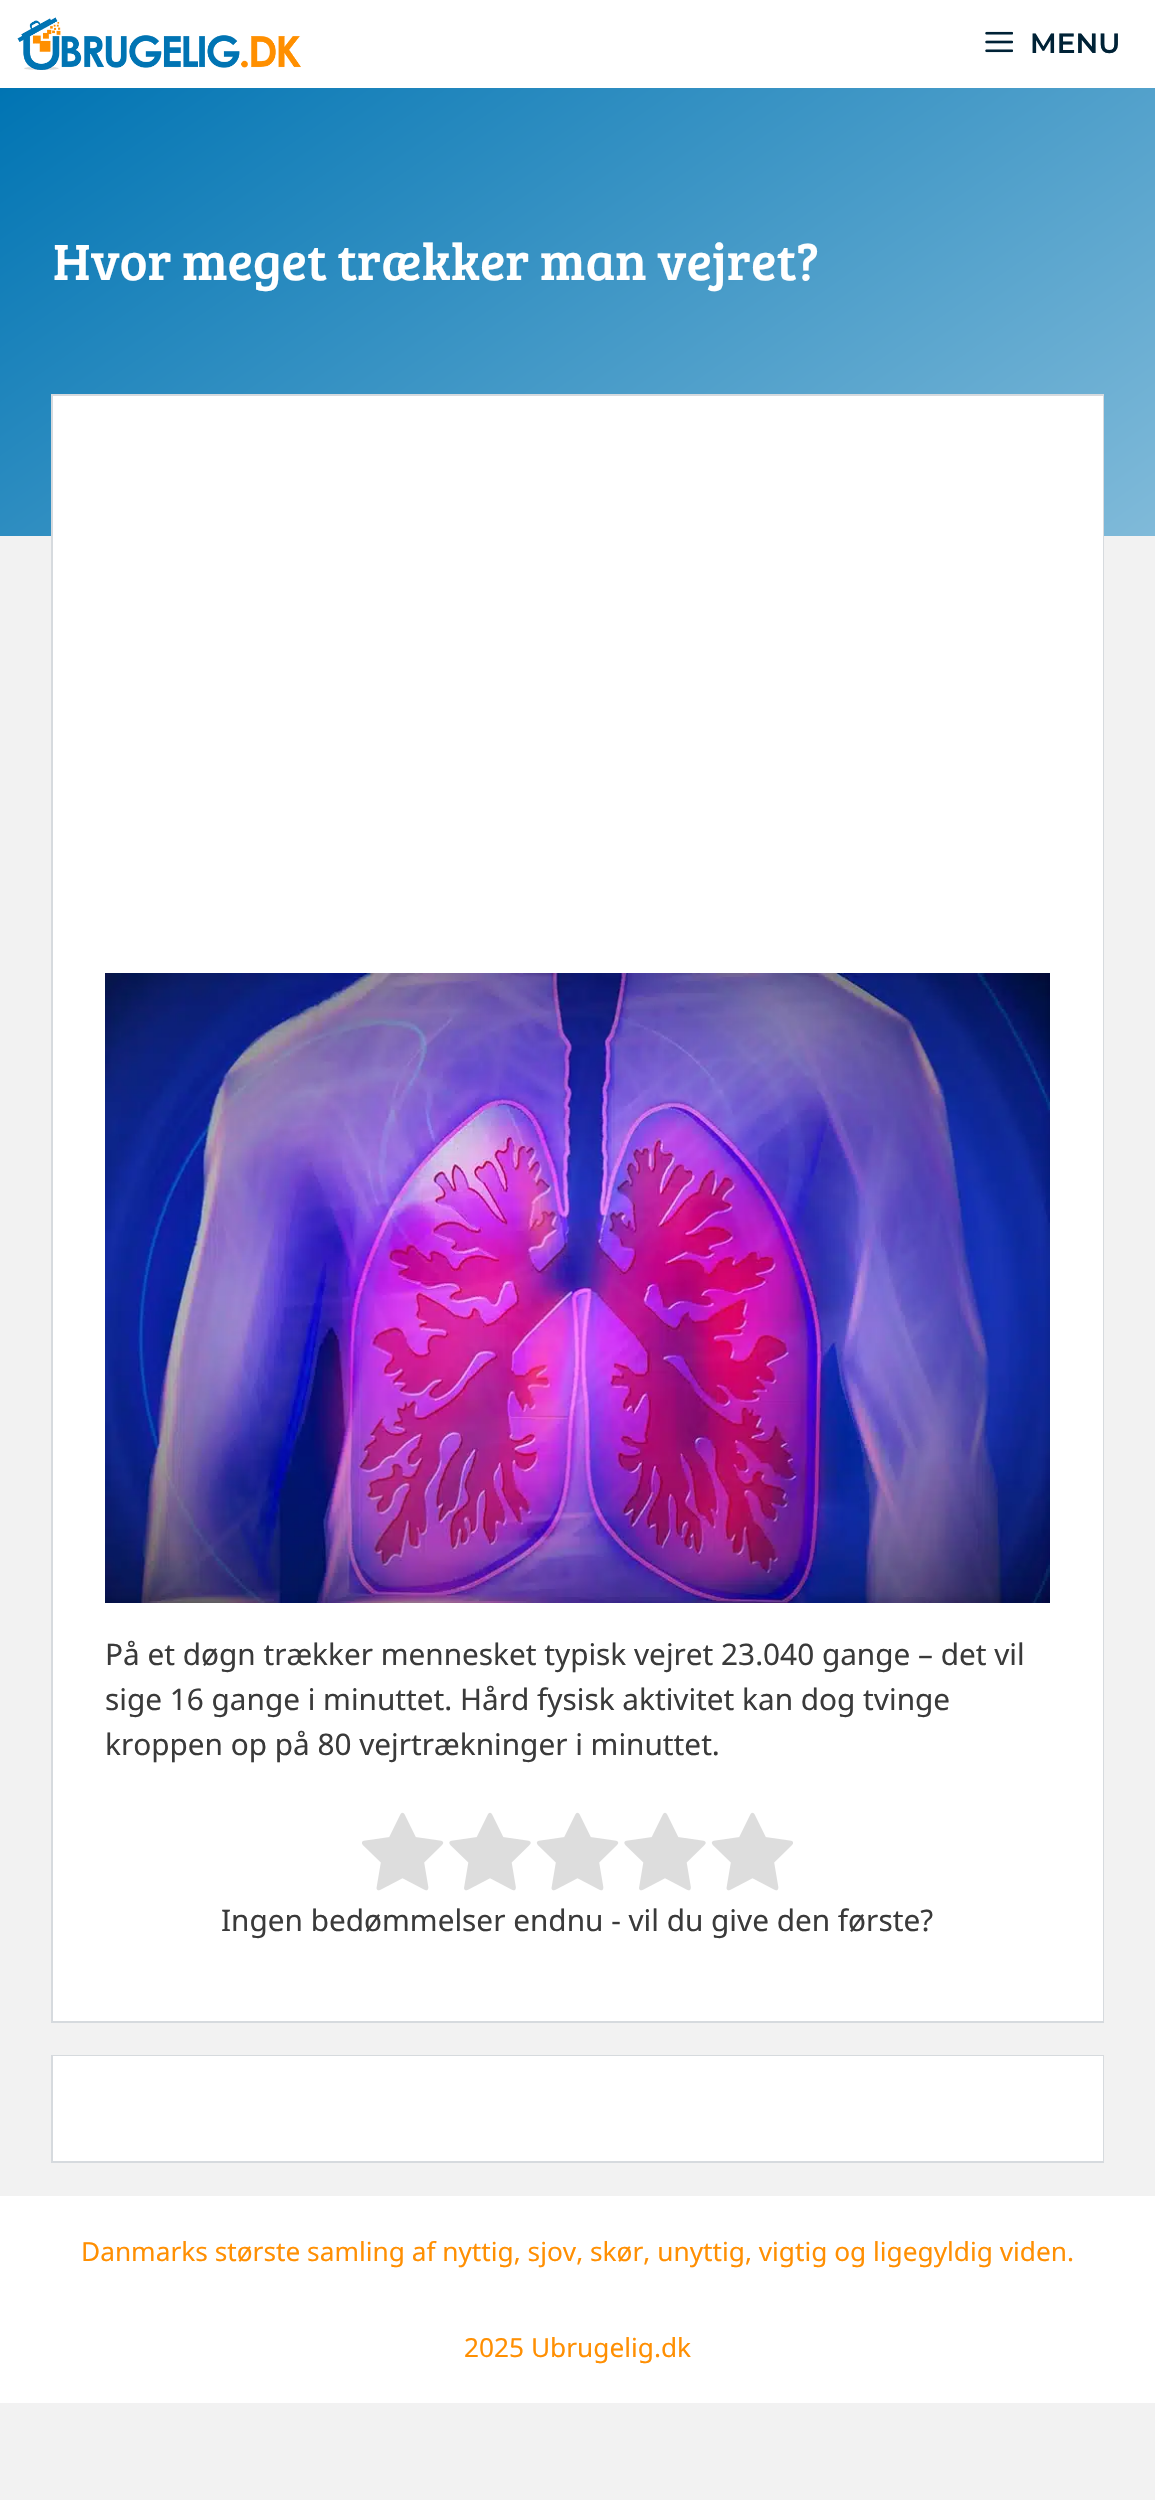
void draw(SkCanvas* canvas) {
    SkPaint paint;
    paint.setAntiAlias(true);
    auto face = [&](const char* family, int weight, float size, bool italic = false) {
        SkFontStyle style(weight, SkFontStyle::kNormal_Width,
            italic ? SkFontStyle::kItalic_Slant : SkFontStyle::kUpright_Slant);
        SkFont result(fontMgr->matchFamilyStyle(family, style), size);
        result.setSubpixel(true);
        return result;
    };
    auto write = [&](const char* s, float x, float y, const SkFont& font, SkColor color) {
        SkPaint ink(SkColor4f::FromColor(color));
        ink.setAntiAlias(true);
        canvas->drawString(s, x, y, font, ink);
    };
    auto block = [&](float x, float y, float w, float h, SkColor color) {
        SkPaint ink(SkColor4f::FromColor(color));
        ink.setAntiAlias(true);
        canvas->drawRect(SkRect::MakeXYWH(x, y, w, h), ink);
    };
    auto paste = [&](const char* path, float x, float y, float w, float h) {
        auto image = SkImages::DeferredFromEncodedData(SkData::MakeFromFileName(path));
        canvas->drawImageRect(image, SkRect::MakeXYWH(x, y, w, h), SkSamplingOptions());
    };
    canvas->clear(SkColorSetRGB(242, 242, 242));
    block(0, 0, 1155, 88, SK_ColorWHITE);
    paste("pic1.png", 17, 17, 284, 53);
    paste("pic2.png", 985, 31, 28, 22);
    auto kFont1 = face("Montserrat", 600, 28);
    write("MENU", 1030, 53, kFont1, SkColorSetRGB(0, 34, 54));
    {
        const SkColor colors[] = {SkColorSetRGB(0, 116, 179), SkColorSetRGB(128, 186, 217)};
        const float stops[] = {0, 1};
        const SkPoint ends[] = {{282, -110}, {873, 733}};
        paint.setShader(SkGradientShader::MakeLinear(ends, colors, stops, 2, SkTileMode::kClamp));
        paint.setAlpha(255);
    }
    canvas->drawRect(SkRect::MakeXYWH(0, 88, 1155, 448), paint);
    auto kFont2 = face("Bree Serif", 400, 52.5f);
    write("Hvor meget trækker man vejret?", 53, 280, kFont2, SK_ColorWHITE);
    paint.setStyle(SkPaint::kStroke_Style);
    paint.setStrokeWidth(2);
    paint.setShader(nullptr);
    paint.setColor(SkColorSetRGB(214, 218, 222));
    canvas->drawRect(SkRect::MakeXYWH(52, 395, 1051, 1627), paint);
    block(53, 396, 1050, 1625, SK_ColorWHITE);
    paste("pic3.png", 105, 973, 945, 630);
    auto kFont3 = face("Noto Sans", 400, 29.75f);
    write("På et døgn trækker mennesket typisk vejret 23.040 gange – det vil", 105, 1665, kFont3, SkColorSetRGB(58, 58, 58));
    write("sige 16 gange i minuttet. Hård fysisk aktivitet kan dog tvinge", 105, 1710, kFont3, SkColorSetRGB(58, 58, 58));
    write("kroppen op på 80 vejrtrækninger i minuttet.", 105, 1755, kFont3, SkColorSetRGB(58, 58, 58));
    paste("pic4.png", 362, 1812, 431, 79);
    write("Ingen bedømmelser endnu - vil du give den første?", 221, 1931, kFont3, SkColorSetRGB(58, 58, 58));
    canvas->drawRect(SkRect::MakeXYWH(52, 2056, 1051, 106), paint);
    block(53, 2056, 1050, 105, SK_ColorWHITE);
    block(0, 2196, 1155, 207, SK_ColorWHITE);
    auto kFont4 = face("Noto Sans", 400, 26.25f);
    write("Danmarks største samling af nyttig, sjov, skør, unyttig, vigtig og ligegyldig viden.", 81, 2261, kFont4, SkColorSetRGB(255, 143, 2));
    write("2025 Ubrugelig.dk", 464, 2357, kFont4, SkColorSetRGB(255, 143, 2));
}
